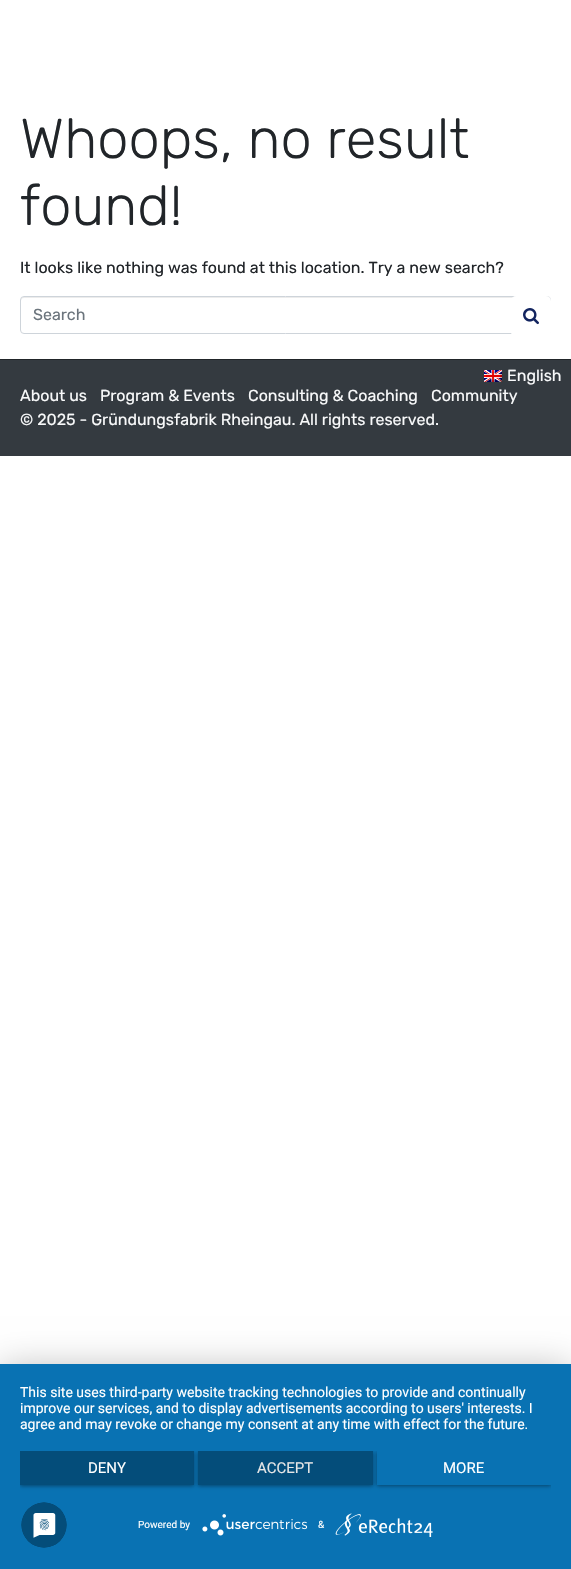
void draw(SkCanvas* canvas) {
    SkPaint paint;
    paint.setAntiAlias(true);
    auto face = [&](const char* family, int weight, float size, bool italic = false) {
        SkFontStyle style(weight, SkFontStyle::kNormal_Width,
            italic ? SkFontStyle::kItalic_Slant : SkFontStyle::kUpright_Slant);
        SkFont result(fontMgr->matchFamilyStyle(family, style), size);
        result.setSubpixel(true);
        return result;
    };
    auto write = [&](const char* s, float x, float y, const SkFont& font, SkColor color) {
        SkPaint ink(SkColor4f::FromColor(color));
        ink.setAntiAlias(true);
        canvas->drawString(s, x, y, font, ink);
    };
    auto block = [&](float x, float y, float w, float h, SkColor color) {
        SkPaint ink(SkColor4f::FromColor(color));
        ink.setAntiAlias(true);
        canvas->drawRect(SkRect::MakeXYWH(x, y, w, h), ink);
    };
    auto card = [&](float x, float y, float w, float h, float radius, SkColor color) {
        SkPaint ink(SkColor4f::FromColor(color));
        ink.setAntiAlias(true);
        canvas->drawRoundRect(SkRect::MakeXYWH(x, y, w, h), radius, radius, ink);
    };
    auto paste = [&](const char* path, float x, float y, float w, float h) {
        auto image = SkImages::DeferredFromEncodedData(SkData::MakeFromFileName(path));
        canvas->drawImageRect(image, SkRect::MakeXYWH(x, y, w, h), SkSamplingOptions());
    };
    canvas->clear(SK_ColorWHITE);
    auto kFont1 = face("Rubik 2", 300, 56);
    write("Whoops, no result", 20, 158, kFont1, SkColorSetRGB(33, 37, 41));
    write("found!", 20, 225, kFont1, SkColorSetRGB(33, 37, 41));
    auto kFont2 = face("Rubik", 300, 16);
    write("It looks like nothing was found at this location. Try a new search?", 20, 273, kFont2, SkColorSetRGB(33, 37, 41));
    paint.setColor(SkColorSetRGB(236, 236, 236));
    canvas->drawPath(SkPathBuilder().moveTo(24, 298).lineTo(547, 298).cubicTo(549, 298, 550, 299, 550, 301).lineTo(550, 300).cubicTo(550, 298, 549, 297, 547, 297).lineTo(24, 297).cubicTo(22, 297, 21, 298, 21, 300).lineTo(21, 301).cubicTo(21, 299, 22, 298, 24, 298).close().detach(), paint);
    paint.setStyle(SkPaint::kStroke_Style);
    paint.setStrokeWidth(1);
    paint.setColor(SkColorSetRGB(206, 212, 218));
    canvas->drawRoundRect(SkRect::MakeXYWH(20.5f, 296.5f, 530, 37), 3.5f, 3.5f, paint);
    write("Search", 33, 320, kFont2, SkColorSetRGB(108, 117, 125));
    card(511, 296, 40, 41, 5, SK_ColorWHITE);
    paste("pic1.png", 523, 308, 16, 17);
    block(0, 360, 571, 96, SkColorSetRGB(52, 58, 64));
    block(0, 359, 571, 1, SkColorSetRGB(33, 37, 41));
    paste("pic2.png", 484, 370, 18, 12);
    write("English", 507, 381, kFont2, SkColorSetRGB(248, 249, 250));
    write("About us", 20, 401, kFont2, SkColorSetRGB(248, 249, 250));
    write("Program & Events", 100, 401, kFont2, SkColorSetRGB(248, 249, 250));
    write("Consulting & Coaching", 248, 401, kFont2, SkColorSetRGB(248, 249, 250));
    write("Community", 431, 401, kFont2, SkColorSetRGB(248, 249, 250));
    write("© 2025 - Gründungsfabrik Rheingau. All rights reserved.", 20, 425, kFont2, SkColorSetRGB(248, 249, 250));
    paint.setStyle(SkPaint::kFill_Style);
    paint.setColor(SkColorSetARGB(77, 0, 0, 0));
    paint.setMaskFilter(SkMaskFilter::MakeBlur(kNormal_SkBlurStyle, 18));
    canvas->drawRect(SkRect::MakeXYWH(0, 1370, 571, 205), paint);
    paint.setMaskFilter(nullptr);
    block(0, 1364, 571, 205, SkColorSetRGB(9, 114, 179));
    auto kFont3 = face("Roboto", 400, 14);
    write("This site uses third-party website tracking technologies to provide and continually", 20, 1397, kFont3, SK_ColorWHITE);
    write("improve our services, and to display advertisements according to users' interests. I", 20, 1413, kFont3, SK_ColorWHITE);
    write("agree and may revoke or change my consent at any time with effect for the future.", 20, 1429, kFont3, SK_ColorWHITE);
    canvas->save();
    canvas->clipRect(SkRect::MakeXYWH(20, 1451, 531, 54));
    paint.setColor(SkColorSetARGB(102, 0, 0, 0));
    paint.setMaskFilter(SkMaskFilter::MakeBlur(kNormal_SkBlurStyle, 2));
    canvas->drawRect(SkRect::MakeXYWH(20, 1452, 174, 34), paint);
    paint.setMaskFilter(nullptr);
    canvas->restore();
    block(20, 1451, 174, 34, SkColorSetRGB(4, 77, 122));
    auto kFont4 = face("Roboto", 400, 15);
    write("DENY", 88, 1473, kFont4, SK_ColorWHITE);
    canvas->save();
    canvas->clipRect(SkRect::MakeXYWH(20, 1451, 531, 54));
    paint.setMaskFilter(SkMaskFilter::MakeBlur(kNormal_SkBlurStyle, 2));
    canvas->drawRect(SkRect::MakeXYWH(198, 1452, 175, 34), paint);
    paint.setMaskFilter(nullptr);
    canvas->restore();
    block(198, 1451, 175, 34, SkColorSetRGB(4, 77, 122));
    write("ACCEPT", 257, 1473, kFont4, SkColorSetRGB(230, 230, 230));
    canvas->save();
    canvas->clipRect(SkRect::MakeXYWH(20, 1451, 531, 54));
    canvas->clipPath(SkPathBuilder(SkPathFillType::kEvenOdd).moveTo(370, 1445).lineTo(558, 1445).lineTo(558, 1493).lineTo(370, 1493).close().moveTo(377, 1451).lineTo(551, 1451).lineTo(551, 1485).lineTo(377, 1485).close().detach(), true);
    paint.setMaskFilter(SkMaskFilter::MakeBlur(kNormal_SkBlurStyle, 2));
    canvas->drawRect(SkRect::MakeXYWH(377, 1452, 174, 34), paint);
    paint.setMaskFilter(nullptr);
    canvas->restore();
    write("MORE", 443, 1473, kFont4, SK_ColorWHITE);
    auto kFont5 = face("Roboto", 400, 10);
    write("Powered by", 138, 1528, kFont5, SK_ColorWHITE);
    paste("pic3.png", 202, 1514, 106, 22);
    write("&", 318, 1528, kFont5, SK_ColorWHITE);
    paste("pic4.png", 335, 1513, 98, 24);
    paste("pic5.png", 21, 1502, 46, 46);
}
